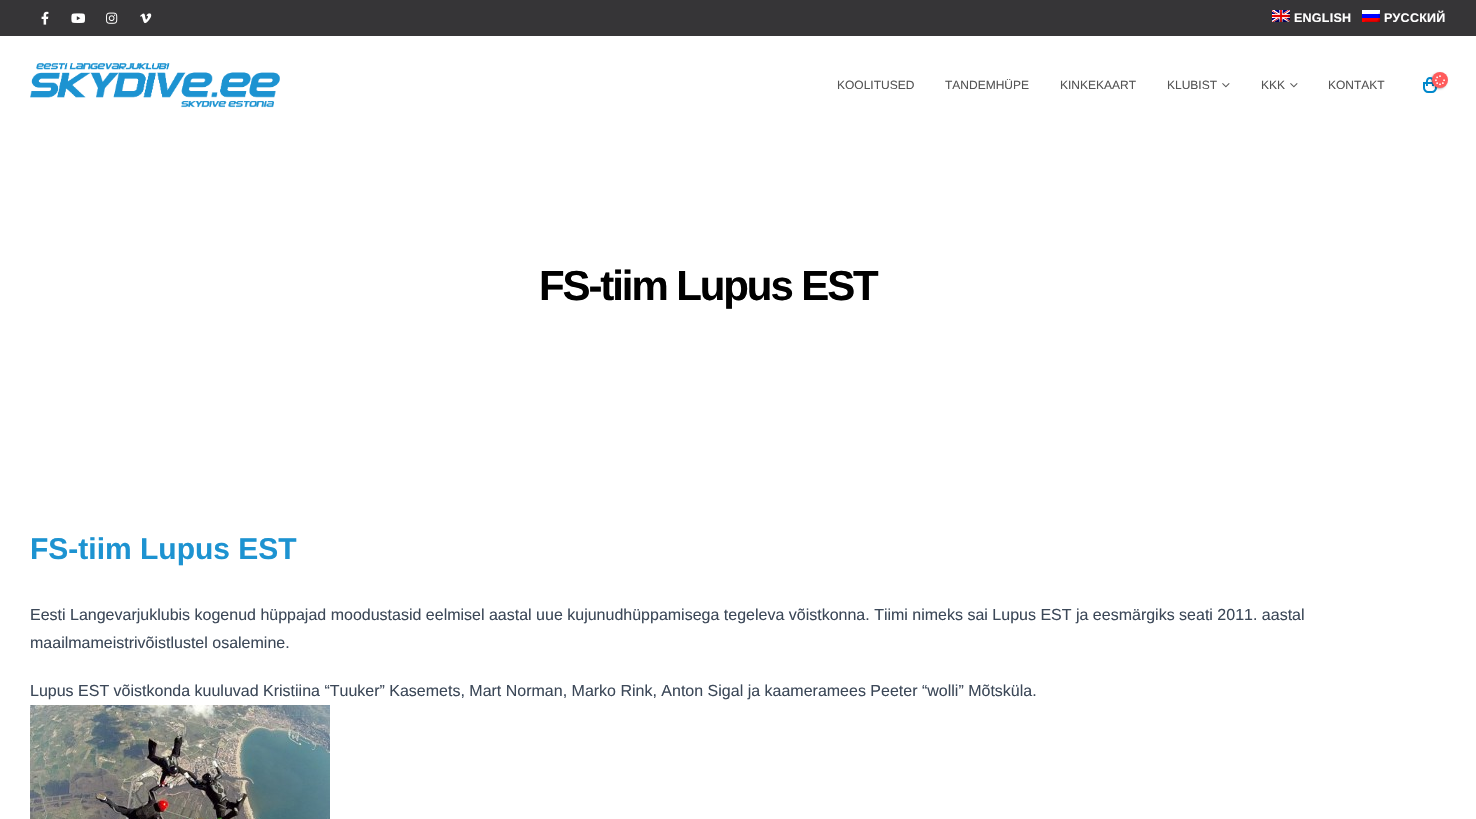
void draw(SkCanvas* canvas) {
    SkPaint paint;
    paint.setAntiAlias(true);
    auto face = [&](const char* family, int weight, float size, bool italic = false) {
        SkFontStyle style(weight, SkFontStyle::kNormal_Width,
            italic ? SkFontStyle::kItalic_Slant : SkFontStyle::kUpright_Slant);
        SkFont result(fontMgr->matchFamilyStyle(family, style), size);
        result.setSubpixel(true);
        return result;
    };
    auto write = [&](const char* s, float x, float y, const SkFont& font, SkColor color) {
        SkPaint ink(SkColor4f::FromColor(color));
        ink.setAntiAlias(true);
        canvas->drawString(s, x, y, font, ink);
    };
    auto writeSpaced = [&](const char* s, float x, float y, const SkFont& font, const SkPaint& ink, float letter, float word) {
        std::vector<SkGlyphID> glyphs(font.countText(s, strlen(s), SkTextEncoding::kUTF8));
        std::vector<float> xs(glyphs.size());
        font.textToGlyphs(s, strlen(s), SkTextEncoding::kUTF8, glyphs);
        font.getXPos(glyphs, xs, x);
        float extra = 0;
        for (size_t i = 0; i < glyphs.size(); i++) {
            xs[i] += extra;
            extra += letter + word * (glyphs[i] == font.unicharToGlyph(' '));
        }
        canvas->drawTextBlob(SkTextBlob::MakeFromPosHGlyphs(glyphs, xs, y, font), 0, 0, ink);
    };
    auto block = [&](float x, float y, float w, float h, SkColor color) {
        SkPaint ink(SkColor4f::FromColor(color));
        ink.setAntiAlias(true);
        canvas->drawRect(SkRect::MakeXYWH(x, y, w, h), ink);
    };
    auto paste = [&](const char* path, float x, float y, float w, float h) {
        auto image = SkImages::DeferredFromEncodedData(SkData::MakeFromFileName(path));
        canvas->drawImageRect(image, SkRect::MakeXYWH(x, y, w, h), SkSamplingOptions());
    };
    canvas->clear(SK_ColorWHITE);
    block(0, 0, 1476, 36, SkColorSetRGB(54, 53, 55));
    paste("pic1.png", 41, 11, 8, 14);
    paste("pic2.png", 71, 13, 14, 10);
    paste("pic3.png", 106, 12, 12, 12);
    paste("pic4.png", 140, 13, 12, 11);
    paste("pic5.png", 1272, 10, 18, 12);
    auto kFont1 = face("Liberation Sans", 700, 12.5f);
    paint.setColor(SK_ColorWHITE);
    writeSpaced("ENGLISH", 1294, 22, kFont1, paint, 0.25f, 0);
    paste("pic6.png", 1362, 10, 18, 12);
    writeSpaced("РУССКИЙ", 1384, 22, kFont1, paint, 0.25f, 0);
    paste("pic7.png", 30, 63, 250, 45);
    auto kFont2 = face("Liberation Sans", 400, 12);
    write("KOOLITUSED", 837, 89, kFont2, SkColorSetRGB(85, 85, 85));
    write("TANDEMHÜPE", 945, 89, kFont2, SkColorSetRGB(85, 85, 85));
    write("KINKEKAART", 1060, 89, kFont2, SkColorSetRGB(85, 85, 85));
    write("KLUBIST", 1167, 89, kFont2, SkColorSetRGB(85, 85, 85));
    paste("pic8.png", 1222, 83, 8, 5);
    write("KKK", 1261, 89, kFont2, SkColorSetRGB(85, 85, 85));
    paste("pic8.png", 1290, 83, 8, 5);
    write("KONTAKT", 1328, 89, kFont2, SkColorSetRGB(85, 85, 85));
    paint.setStyle(SkPaint::kStroke_Style);
    paint.setStrokeWidth(2);
    paint.setColor(SkColorSetRGB(0, 136, 204));
    canvas->drawPath(SkPathBuilder().moveTo(1424, 83).lineTo(1436, 83).lineTo(1436, 88).cubicTo(1436, 90, 1434, 92, 1432, 92).lineTo(1428, 92).cubicTo(1426, 92, 1424, 90, 1424, 88).close().detach(), paint);
    paint.setStyle(SkPaint::kFill_Style);
    canvas->drawPath(SkPathBuilder(SkPathFillType::kEvenOdd).moveTo(1430, 77).cubicTo(1435, 77, 1434, 83, 1434, 86).lineTo(1426, 86).cubicTo(1426, 83, 1425, 77, 1430, 77).close().moveTo(1430, 79).cubicTo(1433, 79, 1432, 84, 1432, 86).lineTo(1428, 86).cubicTo(1428, 84, 1427, 79, 1430, 79).close().detach(), paint);
    paint.setColor(SkColorSetARGB(77, 0, 0, 0));
    paint.setMaskFilter(SkMaskFilter::MakeBlur(kNormal_SkBlurStyle, 1));
    canvas->drawRoundRect(SkRect::MakeXYWH(1431, 73, 16, 16), 8, 8, paint);
    paint.setMaskFilter(nullptr);
    paint.setColor(SkColorSetRGB(255, 91, 91));
    canvas->drawCircle(1440, 80, 8, paint);
    paste("pic9.png", 1435, 75, 10, 11);
    auto kFont3 = face("Liberation Sans", 700, 42);
    paint.setColor(SK_ColorBLACK);
    writeSpaced("FS-tiim Lupus EST", 539, 300, kFont3, paint, -2.1f, 0);
    auto kFont4 = face("Liberation Sans", 700, 30);
    write("FS-tiim Lupus EST", 30, 559, kFont4, SkColorSetRGB(29, 147, 209));
    auto kFont5 = face("Liberation Sans", 400, 16);
    write("Eesti Langevarjuklubis kogenud hüppajad moodustasid eelmisel aastal uue kujunudhüppamisega tegeleva võistkonna. Tiimi nimeks sai Lupus EST ja eesmärgiks seati 2011. aastal", 30, 620, kFont5, SkColorSetRGB(60, 72, 88));
    write("maailmameistrivõistlustel osalemine.", 30, 648, kFont5, SkColorSetRGB(60, 72, 88));
    write("Lupus EST võistkonda kuuluvad Kristiina “Tuuker” Kasemets, Mart Norman, Marko Rink, Anton Sigal ja kaameramees Peeter “wolli” Mõtsküla.", 30, 696, kFont5, SkColorSetRGB(60, 72, 88));
    paste("pic10.png", 30, 705, 300, 114);
}
